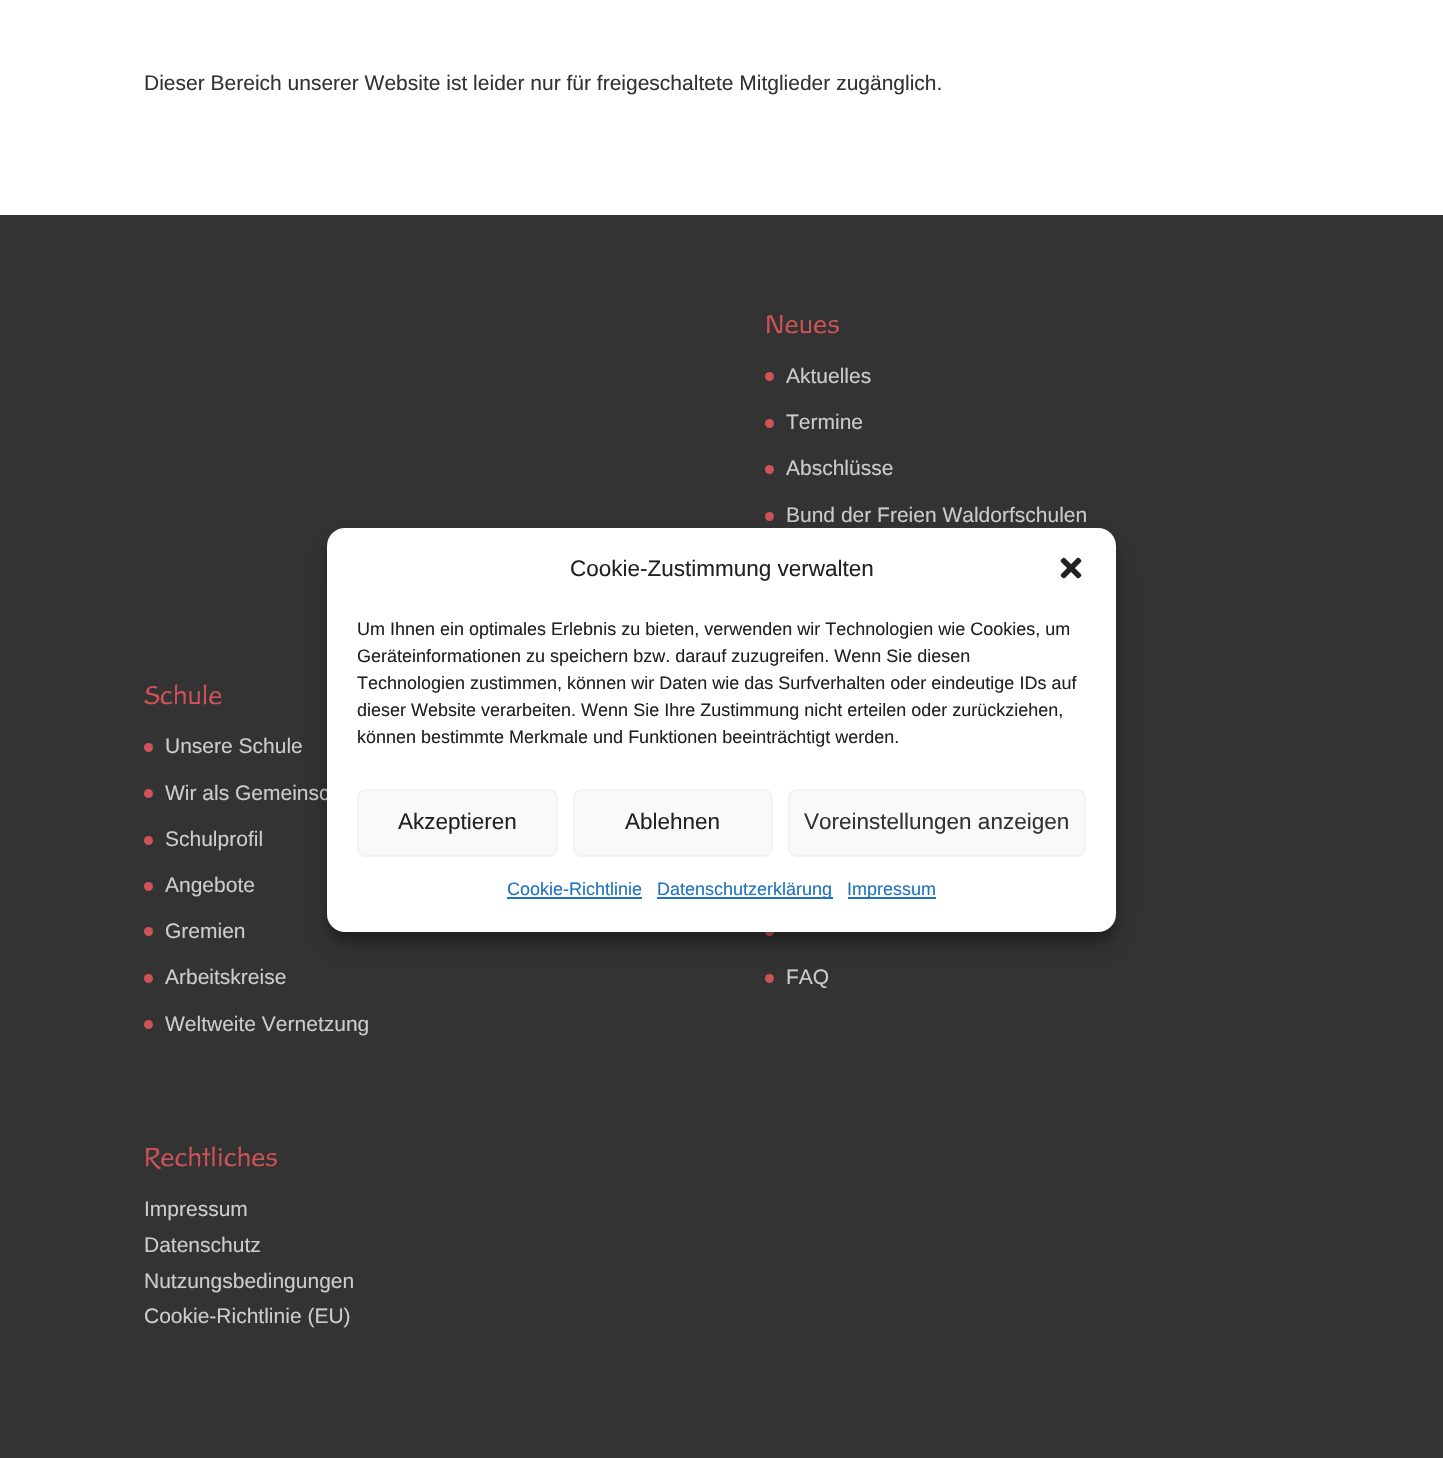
void draw(SkCanvas* canvas) {
    SkPaint paint;
    paint.setAntiAlias(true);
    auto face = [&](const char* family, int weight, float size, bool italic = false) {
        SkFontStyle style(weight, SkFontStyle::kNormal_Width,
            italic ? SkFontStyle::kItalic_Slant : SkFontStyle::kUpright_Slant);
        SkFont result(fontMgr->matchFamilyStyle(family, style), size);
        result.setSubpixel(true);
        return result;
    };
    auto write = [&](const char* s, float x, float y, const SkFont& font, SkColor color) {
        SkPaint ink(SkColor4f::FromColor(color));
        ink.setAntiAlias(true);
        canvas->drawString(s, x, y, font, ink);
    };
    auto block = [&](float x, float y, float w, float h, SkColor color) {
        SkPaint ink(SkColor4f::FromColor(color));
        ink.setAntiAlias(true);
        canvas->drawRect(SkRect::MakeXYWH(x, y, w, h), ink);
    };
    auto card = [&](float x, float y, float w, float h, float radius, SkColor color) {
        SkPaint ink(SkColor4f::FromColor(color));
        ink.setAntiAlias(true);
        canvas->drawRoundRect(SkRect::MakeXYWH(x, y, w, h), radius, radius, ink);
    };
    auto paste = [&](const char* path, float x, float y, float w, float h) {
        auto image = SkImages::DeferredFromEncodedData(SkData::MakeFromFileName(path));
        canvas->drawImageRect(image, SkRect::MakeXYWH(x, y, w, h), SkSamplingOptions());
    };
    canvas->clear(SK_ColorWHITE);
    auto kFont1 = face("Liberation Sans", 400, 21);
    write("Dieser Bereich unserer Website ist leider nur für freigeschaltete Mitglieder zugänglich.", 144, 90, kFont1, SkColorSetRGB(51, 51, 51));
    block(0, 215, 1443, 1243, SkColorSetRGB(51, 51, 51));
    auto kFont2 = face("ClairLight", 300, 27);
    write("Neues", 765, 333, kFont2, SkColorSetRGB(206, 82, 86));
    paint.setColor(SkColorSetRGB(206, 82, 86));
    canvas->drawCircle(769.5f, 376.5f, 4.5f, paint);
    write("Aktuelles", 786, 383, kFont1, SkColorSetRGB(204, 204, 204));
    canvas->drawCircle(769.5f, 423.5f, 4.5f, paint);
    write("Termine", 786, 429, kFont1, SkColorSetRGB(204, 204, 204));
    canvas->drawCircle(769.5f, 469.5f, 4.5f, paint);
    write("Abschlüsse", 786, 475, kFont1, SkColorSetRGB(204, 204, 204));
    canvas->drawCircle(769.5f, 516.5f, 4.5f, paint);
    write("Bund der Freien Waldorfschulen", 786, 522, kFont1, SkColorSetRGB(204, 204, 204));
    write("Schule", 144, 704, kFont2, SkColorSetRGB(206, 82, 86));
    canvas->drawCircle(148.5f, 747.5f, 4.5f, paint);
    write("Unsere Schule", 165, 753, kFont1, SkColorSetRGB(204, 204, 204));
    canvas->drawCircle(148.5f, 793.5f, 4.5f, paint);
    write("Wir als Gemeinsc", 165, 800, kFont1, SkColorSetRGB(204, 204, 204));
    canvas->drawCircle(148.5f, 840.5f, 4.5f, paint);
    write("Schulprofil", 165, 846, kFont1, SkColorSetRGB(204, 204, 204));
    canvas->drawCircle(148.5f, 886.5f, 4.5f, paint);
    write("Angebote", 165, 892, kFont1, SkColorSetRGB(204, 204, 204));
    canvas->drawCircle(148.5f, 931.5f, 4.5f, paint);
    write("Gremien", 165, 938, kFont1, SkColorSetRGB(204, 204, 204));
    canvas->drawCircle(148.5f, 978.5f, 4.5f, paint);
    write("Arbeitskreise", 165, 984, kFont1, SkColorSetRGB(204, 204, 204));
    canvas->drawCircle(148.5f, 1024.5f, 4.5f, paint);
    write("Weltweite Vernetzung", 165, 1031, kFont1, SkColorSetRGB(204, 204, 204));
    canvas->drawCircle(769.5f, 931.5f, 4.5f, paint);
    canvas->drawCircle(769.5f, 978.5f, 4.5f, paint);
    write("FAQ", 786, 984, kFont1, SkColorSetRGB(204, 204, 204));
    write("Rechtliches", 144, 1166, kFont2, SkColorSetRGB(206, 82, 86));
    write("Impressum", 144, 1216, kFont1, SkColorSetRGB(204, 204, 204));
    write("Datenschutz", 144, 1252, kFont1, SkColorSetRGB(204, 204, 204));
    write("Nutzungsbedingungen", 144, 1288, kFont1, SkColorSetRGB(204, 204, 204));
    write("Cookie-Richtlinie (EU)", 144, 1323, kFont1, SkColorSetRGB(204, 204, 204));
    paint.setColor(SkColorSetARGB(59, 0, 0, 0));
    paint.setMaskFilter(SkMaskFilter::MakeBlur(kNormal_SkBlurStyle, 4.5f));
    canvas->drawRoundRect(SkRect::MakeXYWH(327, 537, 789, 404), 18, 18, paint);
    paint.setMaskFilter(nullptr);
    paint.setColor(SkColorSetARGB(48, 0, 0, 0));
    paint.setMaskFilter(SkMaskFilter::MakeBlur(kNormal_SkBlurStyle, 15));
    canvas->drawRoundRect(SkRect::MakeXYWH(327, 543, 789, 404), 18, 18, paint);
    paint.setMaskFilter(nullptr);
    card(327, 528, 789, 404, 18, SK_ColorWHITE);
    auto kFont3 = face("Liberation Sans", 400, 22.5f);
    write("Cookie-Zustimmung verwalten", 570, 576, kFont3, SkColorSetRGB(34, 34, 34));
    paste("pic1.png", 1060, 557, 22, 22);
    auto kFont4 = face("Liberation Sans", 400, 18);
    write("Um Ihnen ein optimales Erlebnis zu bieten, verwenden wir Technologien wie Cookies, um", 357, 635, kFont4, SkColorSetRGB(34, 34, 34));
    write("Geräteinformationen zu speichern bzw. darauf zuzugreifen. Wenn Sie diesen", 357, 662, kFont4, SkColorSetRGB(34, 34, 34));
    write("Technologien zustimmen, können wir Daten wie das Surfverhalten oder eindeutige IDs auf", 357, 689, kFont4, SkColorSetRGB(34, 34, 34));
    write("dieser Website verarbeiten. Wenn Sie Ihre Zustimmung nicht erteilen oder zurückziehen,", 357, 716, kFont4, SkColorSetRGB(34, 34, 34));
    write("können bestimmte Merkmale und Funktionen beeinträchtigt werden.", 357, 743, kFont4, SkColorSetRGB(34, 34, 34));
    paint.setColor(SkColorSetRGB(249, 249, 249));
    canvas->drawRoundRect(SkRect::MakeXYWH(358, 790, 199, 66), 8, 8, paint);
    paint.setStyle(SkPaint::kStroke_Style);
    paint.setStrokeWidth(2);
    paint.setColor(SkColorSetRGB(242, 242, 242));
    canvas->drawRoundRect(SkRect::MakeXYWH(358, 790, 199, 66), 8, 8, paint);
    write("Akzeptieren", 398, 829, kFont3, SkColorSetRGB(34, 34, 34));
    paint.setStyle(SkPaint::kFill_Style);
    paint.setColor(SkColorSetRGB(249, 249, 249));
    canvas->drawRoundRect(SkRect::MakeXYWH(574, 790, 198, 66), 8, 8, paint);
    paint.setStyle(SkPaint::kStroke_Style);
    paint.setColor(SkColorSetRGB(242, 242, 242));
    canvas->drawRoundRect(SkRect::MakeXYWH(574, 790, 198, 66), 8, 8, paint);
    write("Ablehnen", 625, 829, kFont3, SkColorSetRGB(34, 34, 34));
    paint.setStyle(SkPaint::kFill_Style);
    paint.setColor(SkColorSetRGB(249, 249, 249));
    canvas->drawRoundRect(SkRect::MakeXYWH(789, 790, 296, 66), 8, 8, paint);
    paint.setStyle(SkPaint::kStroke_Style);
    paint.setColor(SkColorSetRGB(242, 242, 242));
    canvas->drawRoundRect(SkRect::MakeXYWH(789, 790, 296, 66), 8, 8, paint);
    write("Voreinstellungen anzeigen", 804, 829, kFont3, SkColorSetRGB(51, 51, 51));
    write("Cookie-Richtlinie", 507, 895, kFont4, SkColorSetRGB(30, 115, 190));
    block(507, 897, 135, 2, SkColorSetRGB(30, 115, 190));
    block(657, 897, 176, 2, SkColorSetRGB(30, 115, 190));
    write("Datenschutzerklärung", 657, 895, kFont4, SkColorSetRGB(30, 115, 190));
    block(848, 897, 88, 2, SkColorSetRGB(30, 115, 190));
    write("Impressum", 847, 895, kFont4, SkColorSetRGB(30, 115, 190));
}
